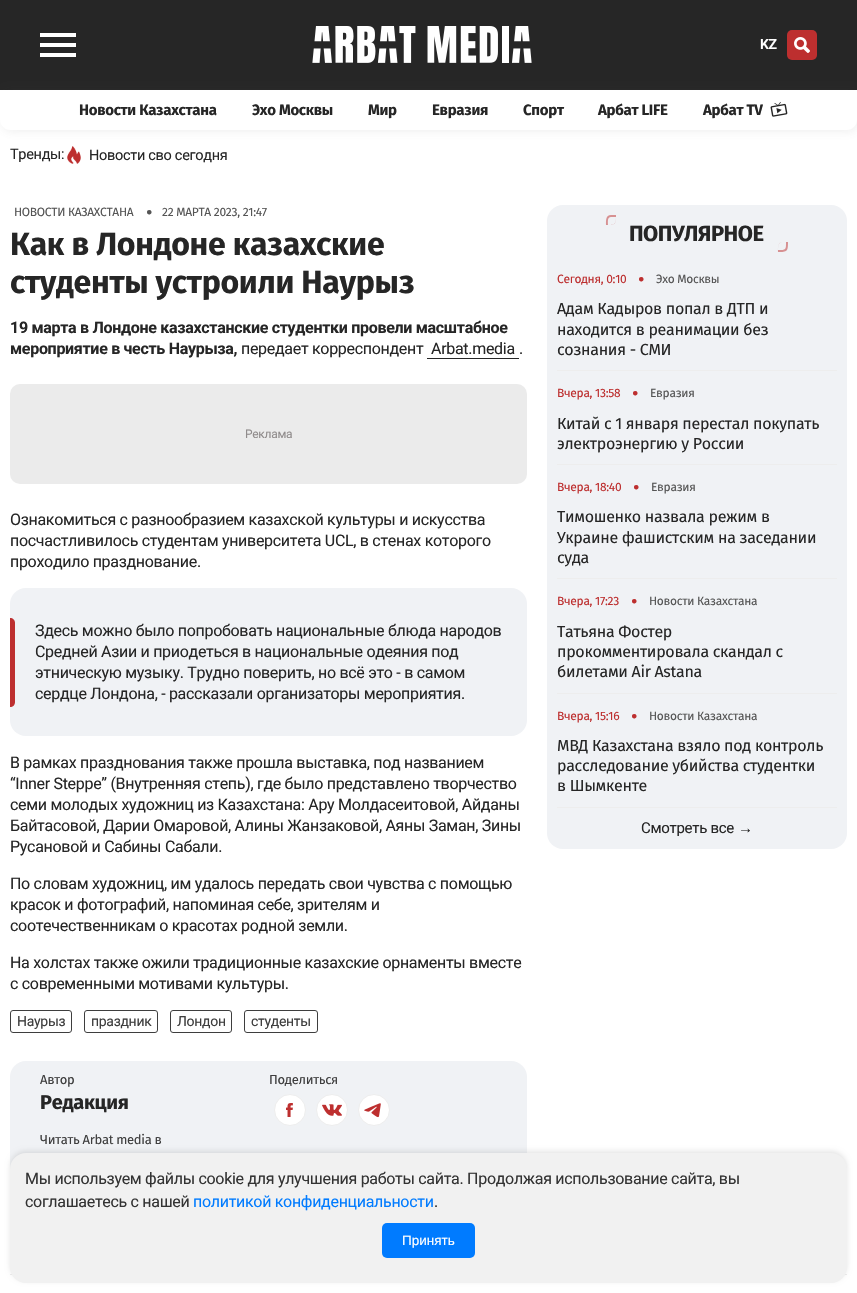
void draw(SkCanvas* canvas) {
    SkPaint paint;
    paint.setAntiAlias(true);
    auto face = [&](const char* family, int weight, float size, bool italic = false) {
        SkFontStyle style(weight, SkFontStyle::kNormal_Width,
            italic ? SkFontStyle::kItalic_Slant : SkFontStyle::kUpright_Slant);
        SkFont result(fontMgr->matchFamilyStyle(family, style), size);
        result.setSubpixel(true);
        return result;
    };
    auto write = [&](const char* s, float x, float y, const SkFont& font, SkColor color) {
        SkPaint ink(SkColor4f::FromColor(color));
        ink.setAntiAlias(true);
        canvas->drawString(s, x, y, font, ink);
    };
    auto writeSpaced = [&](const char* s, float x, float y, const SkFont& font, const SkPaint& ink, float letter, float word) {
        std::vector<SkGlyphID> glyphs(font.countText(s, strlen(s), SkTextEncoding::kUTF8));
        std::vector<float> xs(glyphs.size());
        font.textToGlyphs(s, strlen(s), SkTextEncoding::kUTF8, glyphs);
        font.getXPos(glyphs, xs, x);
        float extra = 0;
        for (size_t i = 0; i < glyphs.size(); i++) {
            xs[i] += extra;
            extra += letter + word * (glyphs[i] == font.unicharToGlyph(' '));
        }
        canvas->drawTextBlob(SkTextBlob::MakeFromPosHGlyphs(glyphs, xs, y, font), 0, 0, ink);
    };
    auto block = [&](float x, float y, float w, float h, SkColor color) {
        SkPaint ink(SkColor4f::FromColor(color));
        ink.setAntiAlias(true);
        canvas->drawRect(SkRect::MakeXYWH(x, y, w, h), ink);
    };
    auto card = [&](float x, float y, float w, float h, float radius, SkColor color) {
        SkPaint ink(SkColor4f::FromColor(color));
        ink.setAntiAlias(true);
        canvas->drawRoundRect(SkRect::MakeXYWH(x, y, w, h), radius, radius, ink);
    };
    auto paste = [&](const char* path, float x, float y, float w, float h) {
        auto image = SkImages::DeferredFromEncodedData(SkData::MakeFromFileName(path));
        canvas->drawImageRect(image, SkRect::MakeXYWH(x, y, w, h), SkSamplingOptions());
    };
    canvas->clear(SK_ColorWHITE);
    block(0, 0, 857, 90, SkColorSetRGB(38, 38, 38));
    paint.setColor(SK_ColorWHITE);
    canvas->drawPath(SkPathBuilder().moveTo(40, 57).lineTo(76, 57).lineTo(76, 53).lineTo(40, 53).close().moveTo(40, 47).lineTo(76, 47).lineTo(76, 43).lineTo(40, 43).close().moveTo(40, 33).lineTo(40, 37).lineTo(76, 37).lineTo(76, 33).close().detach(), paint);
    paste("pic1.png", 312, 26, 220, 37);
    auto kFont1 = face("Roboto", 600, 14);
    writeSpaced("KZ", 760, 49, kFont1, paint, -0.3f, 0);
    card(787, 30, 30, 30, 5, SkColorSetRGB(189, 47, 47));
    paste("pic2.png", 794, 37, 16, 16);
    paint.setColor(SkColorSetARGB(26, 105, 105, 105));
    paint.setMaskFilter(SkMaskFilter::MakeBlur(kNormal_SkBlurStyle, 5));
    canvas->drawRoundRect(SkRect::MakeXYWH(2, 92, 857, 40), 10, 10, paint);
    paint.setMaskFilter(nullptr);
    paint.setColor(SK_ColorWHITE);
    canvas->drawPath(SkPathBuilder().moveTo(0, 90).lineTo(857, 90).lineTo(857, 120).cubicTo(857, 125.5f, 852.5f, 130, 847, 130).lineTo(10, 130).cubicTo(4.5f, 130, 0, 125.5f, 0, 120).close().detach(), paint);
    auto kFont2 = face("Fira Sans", 700, 15);
    paint.setColor(SkColorSetRGB(38, 38, 38));
    writeSpaced("Новости Казахстана", 79, 115, kFont2, paint, -0.3f, 0);
    writeSpaced("Эхо Москвы", 252, 115, kFont2, paint, -0.3f, 0);
    writeSpaced("Мир", 368, 115, kFont2, paint, -0.3f, 0);
    writeSpaced("Евразия", 432, 115, kFont2, paint, -0.3f, 0);
    writeSpaced("Спорт", 523, 115, kFont2, paint, -0.3f, 0);
    writeSpaced("Арбат LIFE", 598, 115, kFont2, paint, -0.3f, 0);
    writeSpaced("Арбат TV", 703, 115, kFont2, paint, -0.3f, 0);
    paste("pic3.png", 770, 102, 18, 15);
    auto kFont3 = face("Roboto", 400, 14.5f);
    writeSpaced("Тренды:", 10, 159, kFont3, paint, -0.3f, 0);
    paste("pic4.png", 67, 146, 14, 18);
    writeSpaced("Новости сво сегодня", 89, 160, kFont3, paint, -0.3f, 0);
    auto kFont4 = face("Fira Sans", 400, 12);
    paint.setColor(SkColorSetRGB(85, 85, 85));
    writeSpaced("НОВОСТИ КАЗАХСТАНА", 14, 216, kFont4, paint, -0.3f, 0);
    auto kFont5 = face("Fira Sans", 400, 20);
    writeSpaced("•", 146, 219, kFont5, paint, -0.3f, 0);
    writeSpaced("22 МАРТА 2023, 21:47", 162, 216, kFont4, paint, -0.3f, 0);
    auto kFont6 = face("Fira Sans", 700, 32);
    paint.setColor(SkColorSetRGB(38, 38, 38));
    writeSpaced("Как в Лондоне казахские", 10, 255, kFont6, paint, -0.3f, 0);
    writeSpaced("студенты устроили Наурыз", 10, 293, kFont6, paint, -0.3f, 0);
    auto kFont7 = face("Roboto", 700, 16);
    writeSpaced("19 марта в Лондоне казахстанские студентки провели масштабное", 10, 333, kFont7, paint, -0.3f, 0);
    writeSpaced("мероприятие в честь Наурыза,", 10, 354, kFont7, paint, -0.3f, 0);
    auto kFont8 = face("Roboto", 400, 16);
    writeSpaced("передает корреспондент", 241, 354, kFont8, paint, -0.3f, 0);
    writeSpaced("Arbat.media", 431, 354, kFont8, paint, -0.3f, 0);
    writeSpaced(".", 519, 354, kFont8, paint, -0.3f, 0);
    block(427, 358, 92, 1, SkColorSetRGB(38, 38, 38));
    card(10, 384, 517, 100, 10, SkColorSetRGB(235, 235, 235));
    auto kFont9 = face("Roboto", 400, 12);
    paint.setColor(SkColorSetRGB(144, 140, 140));
    writeSpaced("Реклама", 245, 438, kFont9, paint, -0.3f, 0);
    paint.setColor(SkColorSetRGB(38, 38, 38));
    writeSpaced("Ознакомиться с разнообразием казахской культуры и искусства", 10, 525, kFont8, paint, -0.3f, 0);
    writeSpaced("посчастливилось студентам университета UCL, в стенах которого", 10, 546, kFont8, paint, -0.3f, 0);
    writeSpaced("проходило празднование.", 10, 567, kFont8, paint, -0.3f, 0);
    card(10, 588, 517, 148, 16, SkColorSetRGB(240, 242, 245));
    paint.setColor(SkColorSetRGB(189, 47, 47));
    canvas->drawPath(SkPathBuilder().moveTo(10, 618).cubicTo(13, 618, 15, 620, 15, 623).lineTo(15, 702).cubicTo(15, 705, 13, 707, 10, 707).close().detach(), paint);
    paint.setColor(SkColorSetRGB(38, 38, 38));
    writeSpaced("Здесь можно было попробовать национальные блюда народов", 35, 636, kFont8, paint, -0.3f, 0);
    writeSpaced("Средней Азии и приодеться в национальные одеяния под", 35, 657, kFont8, paint, -0.3f, 0);
    writeSpaced("этническую музыку. Трудно поверить, но всё это - в самом", 35, 678, kFont8, paint, -0.3f, 0);
    writeSpaced("сердце Лондона, - рассказали организаторы мероприятия.", 35, 699, kFont8, paint, -0.3f, 0);
    writeSpaced("В рамках празднования также прошла выставка, под названием", 10, 768, kFont8, paint, -0.3f, 0);
    writeSpaced("“Inner Steppe” (Внутренняя степь), где было представлено творчество", 10, 789, kFont8, paint, -0.3f, 0);
    writeSpaced("семи молодых художниц из Казахстана: Ару Молдасеитовой, Айданы", 10, 810, kFont8, paint, -0.3f, 0);
    writeSpaced("Байтасовой, Дарии Омаровой, Алины Жанзаковой, Аяны Заман, Зины", 10, 831, kFont8, paint, -0.3f, 0);
    writeSpaced("Русановой и Сабины Сабали.", 10, 852, kFont8, paint, -0.3f, 0);
    writeSpaced("По словам художниц, им удалось передать свои чувства с помощью", 10, 889, kFont8, paint, -0.3f, 0);
    writeSpaced("красок и фотографий, напоминая себе, зрителям и", 10, 910, kFont8, paint, -0.3f, 0);
    writeSpaced("соотечественникам о красотах родной земли.", 10, 931, kFont8, paint, -0.3f, 0);
    writeSpaced("На холстах также ожили традиционные казахские орнаменты вместе", 10, 968, kFont8, paint, -0.3f, 0);
    writeSpaced("с современными мотивами культуры.", 10, 989, kFont8, paint, -0.3f, 0);
    paint.setStyle(SkPaint::kStroke_Style);
    paint.setStrokeWidth(1);
    paint.setColor(SkColorSetRGB(62, 62, 62));
    canvas->drawRoundRect(SkRect::MakeXYWH(10.5f, 1010.5f, 61, 22), 2.5f, 2.5f, paint);
    auto kFont10 = face("Roboto", 400, 14);
    paint.setStyle(SkPaint::kFill_Style);
    writeSpaced("Наурыз", 17, 1026, kFont10, paint, -0.3f, 0);
    paint.setStyle(SkPaint::kStroke_Style);
    canvas->drawRoundRect(SkRect::MakeXYWH(84.5f, 1010.5f, 73, 22), 2.5f, 2.5f, paint);
    paint.setStyle(SkPaint::kFill_Style);
    writeSpaced("праздник", 91, 1026, kFont10, paint, -0.3f, 0);
    paint.setStyle(SkPaint::kStroke_Style);
    canvas->drawRoundRect(SkRect::MakeXYWH(170.5f, 1010.5f, 61, 22), 2.5f, 2.5f, paint);
    paint.setStyle(SkPaint::kFill_Style);
    writeSpaced("Лондон", 177, 1026, kFont10, paint, -0.3f, 0);
    paint.setStyle(SkPaint::kStroke_Style);
    canvas->drawRoundRect(SkRect::MakeXYWH(244.5f, 1010.5f, 73, 22), 2.5f, 2.5f, paint);
    paint.setStyle(SkPaint::kFill_Style);
    writeSpaced("студенты", 251, 1026, kFont10, paint, -0.3f, 0);
    card(10, 1061, 517, 156, 16, SkColorSetRGB(240, 242, 245));
    auto kFont11 = face("Fira Sans", 400, 13);
    writeSpaced("Автор", 40, 1084, kFont11, paint, -0.3f, 0);
    auto kFont12 = face("Fira Sans", 700, 20);
    paint.setColor(SkColorSetRGB(38, 38, 38));
    writeSpaced("Редакция", 40, 1109, kFont12, paint, -0.3f, 0);
    paint.setColor(SkColorSetRGB(62, 62, 62));
    writeSpaced("Поделиться", 269, 1084, kFont11, paint, -0.3f, 0);
    paint.setColor(SK_ColorWHITE);
    canvas->drawCircle(290, 1110, 15.5f, paint);
    paint.setStyle(SkPaint::kStroke_Style);
    paint.setColor(SkColorSetRGB(237, 237, 237));
    canvas->drawCircle(290, 1110, 15.5f, paint);
    paste("pic5.png", 286, 1103, 7, 14);
    paint.setStyle(SkPaint::kFill_Style);
    paint.setColor(SK_ColorWHITE);
    canvas->drawCircle(332, 1110, 15.5f, paint);
    paint.setStyle(SkPaint::kStroke_Style);
    paint.setColor(SkColorSetRGB(237, 237, 237));
    canvas->drawCircle(332, 1110, 15.5f, paint);
    paste("pic6.png", 322, 1104, 20, 12);
    paint.setStyle(SkPaint::kFill_Style);
    paint.setColor(SK_ColorWHITE);
    canvas->drawCircle(374, 1110, 15.5f, paint);
    paint.setStyle(SkPaint::kStroke_Style);
    paint.setColor(SkColorSetRGB(237, 237, 237));
    canvas->drawCircle(374, 1110, 15.5f, paint);
    paste("pic7.png", 364, 1103, 17, 15);
    paint.setStyle(SkPaint::kFill_Style);
    paint.setColor(SkColorSetRGB(62, 62, 62));
    writeSpaced("Читать Arbat media в", 40, 1144, kFont11, paint, -0.3f, 0);
    card(547, 205, 300, 644, 16, SkColorSetRGB(240, 242, 245));
    paint.setColor(SkColorSetRGB(215, 145, 146));
    canvas->drawPath(SkPathBuilder(SkPathFillType::kEvenOdd).moveTo(611, 215).lineTo(616, 215).cubicTo(616, 224.5f, 615.5f, 225, 606, 225).cubicTo(606, 221, 605.5f, 215, 611, 215).close().moveTo(611, 217).lineTo(616, 217).cubicTo(616, 224, 615, 225, 608, 225).cubicTo(608, 222.5f, 607, 217, 611, 217).close().detach(), paint);
    auto kFont13 = face("Fira Sans", 700, 22);
    paint.setColor(SkColorSetRGB(38, 38, 38));
    writeSpaced("ПОПУЛЯРНОЕ", 629, 241, kFont13, paint, -0.5f, 0);
    paint.setColor(SkColorSetRGB(215, 145, 146));
    canvas->drawPath(SkPathBuilder(SkPathFillType::kEvenOdd).moveTo(783, 242).lineTo(788, 242).cubicTo(788, 251.5f, 787.5f, 252, 778, 252).cubicTo(778, 248, 777.5f, 242, 783, 242).close().moveTo(783, 242).lineTo(786, 242).cubicTo(786, 250, 786, 250, 778, 250).cubicTo(778, 246.5f, 778, 242, 783, 242).close().detach(), paint);
    block(557, 370, 280, 1, SkColorSetRGB(237, 237, 237));
    paint.setColor(SkColorSetRGB(189, 47, 47));
    writeSpaced("Сегодня, 0:10", 557, 283, kFont4, paint, -0.3f, 0);
    writeSpaced("•", 638, 286, kFont5, paint, -0.3f, 0);
    paint.setColor(SkColorSetRGB(85, 85, 85));
    writeSpaced("Эхо Москвы", 656, 283, kFont4, paint, -0.3f, 0);
    auto kFont14 = face("Fira Sans", 400, 16);
    paint.setColor(SkColorSetRGB(38, 38, 38));
    writeSpaced("Адам Кадыров попал в ДТП и", 557, 314, kFont14, paint, -0.3f, 0);
    writeSpaced("находится в реанимации без", 557, 335, kFont14, paint, -0.3f, 0);
    writeSpaced("сознания - СМИ", 557, 355, kFont14, paint, -0.3f, 0);
    block(557, 464, 280, 1, SkColorSetRGB(237, 237, 237));
    paint.setColor(SkColorSetRGB(189, 47, 47));
    writeSpaced("Вчера, 13:58", 557, 397, kFont4, paint, -0.3f, 0);
    writeSpaced("•", 632, 400, kFont5, paint, -0.3f, 0);
    paint.setColor(SkColorSetRGB(85, 85, 85));
    writeSpaced("Евразия", 650, 397, kFont4, paint, -0.3f, 0);
    paint.setColor(SkColorSetRGB(38, 38, 38));
    writeSpaced("Китай с 1 января перестал покупать", 557, 429, kFont14, paint, -0.3f, 0);
    writeSpaced("электроэнергию у России", 557, 449, kFont14, paint, -0.3f, 0);
    block(557, 578, 280, 1, SkColorSetRGB(237, 237, 237));
    paint.setColor(SkColorSetRGB(189, 47, 47));
    writeSpaced("Вчера, 18:40", 557, 491, kFont4, paint, -0.3f, 0);
    writeSpaced("•", 633, 494, kFont5, paint, -0.3f, 0);
    paint.setColor(SkColorSetRGB(85, 85, 85));
    writeSpaced("Евразия", 651, 491, kFont4, paint, -0.3f, 0);
    paint.setColor(SkColorSetRGB(38, 38, 38));
    writeSpaced("Тимошенко назвала режим в", 557, 522, kFont14, paint, -0.3f, 0);
    writeSpaced("Украине фашистским на заседании", 557, 543, kFont14, paint, -0.3f, 0);
    writeSpaced("суда", 557, 563, kFont14, paint, -0.3f, 0);
    block(557, 693, 280, 1, SkColorSetRGB(237, 237, 237));
    paint.setColor(SkColorSetRGB(189, 47, 47));
    writeSpaced("Вчера, 17:23", 557, 605, kFont4, paint, -0.3f, 0);
    writeSpaced("•", 631, 608, kFont5, paint, -0.3f, 0);
    paint.setColor(SkColorSetRGB(85, 85, 85));
    writeSpaced("Новости Казахстана", 649, 605, kFont4, paint, -0.3f, 0);
    paint.setColor(SkColorSetRGB(38, 38, 38));
    writeSpaced("Татьяна Фостер", 557, 637, kFont14, paint, -0.3f, 0);
    writeSpaced("прокомментировала скандал с", 557, 657, kFont14, paint, -0.3f, 0);
    writeSpaced("билетами Air Astana", 557, 677, kFont14, paint, -0.3f, 0);
    block(557, 807, 280, 1, SkColorSetRGB(237, 237, 237));
    paint.setColor(SkColorSetRGB(189, 47, 47));
    writeSpaced("Вчера, 15:16", 557, 720, kFont4, paint, -0.3f, 0);
    writeSpaced("•", 631, 723, kFont5, paint, -0.3f, 0);
    paint.setColor(SkColorSetRGB(85, 85, 85));
    writeSpaced("Новости Казахстана", 649, 720, kFont4, paint, -0.3f, 0);
    paint.setColor(SkColorSetRGB(38, 38, 38));
    writeSpaced("МВД Казахстана взяло под контроль", 557, 751, kFont14, paint, -0.3f, 0);
    writeSpaced("расследование убийства студентки", 557, 771, kFont14, paint, -0.3f, 0);
    writeSpaced("в Шымкенте", 557, 791, kFont14, paint, -0.3f, 0);
    auto kFont15 = face("Roboto", 400, 15);
    writeSpaced("Смотреть все", 641, 833, kFont15, paint, -0.3f, 0);
    auto kFont16 = face("Liberation Sans", 400, 15);
    writeSpaced("→", 738, 833, kFont16, paint, -0.3f, 0);
    block(10, 1274, 837, 1, SkColorSetRGB(237, 237, 237));
    paint.setColor(SkColorSetARGB(26, 0, 0, 0));
    paint.setMaskFilter(SkMaskFilter::MakeBlur(kNormal_SkBlurStyle, 2.5f));
    canvas->drawRoundRect(SkRect::MakeXYWH(10, 1151, 837, 130), 16, 16, paint);
    paint.setMaskFilter(nullptr);
    card(10, 1153, 837, 130, 16, SkColorSetRGB(241, 241, 241));
    paint.setColor(SkColorSetRGB(51, 51, 51));
    writeSpaced("Мы используем файлы cookie для улучшения работы сайта. Продолжая использование сайта, вы", 25, 1184, kFont8, paint, -0.3f, 0);
    writeSpaced("соглашаетесь с нашей", 25, 1207, kFont8, paint, -0.3f, 0);
    paint.setColor(SkColorSetRGB(0, 123, 255));
    writeSpaced("политикой конфиденциальности", 193, 1207, kFont8, paint, -0.3f, 0);
    paint.setColor(SkColorSetRGB(51, 51, 51));
    writeSpaced(".", 434, 1207, kFont8, paint, -0.3f, 0);
    card(382, 1223, 93, 35, 5, SkColorSetRGB(0, 123, 255));
    auto kFont17 = face("Liberation Sans", 400, 13.5f);
    write("Принять", 402, 1245, kFont17, SK_ColorWHITE);
}
